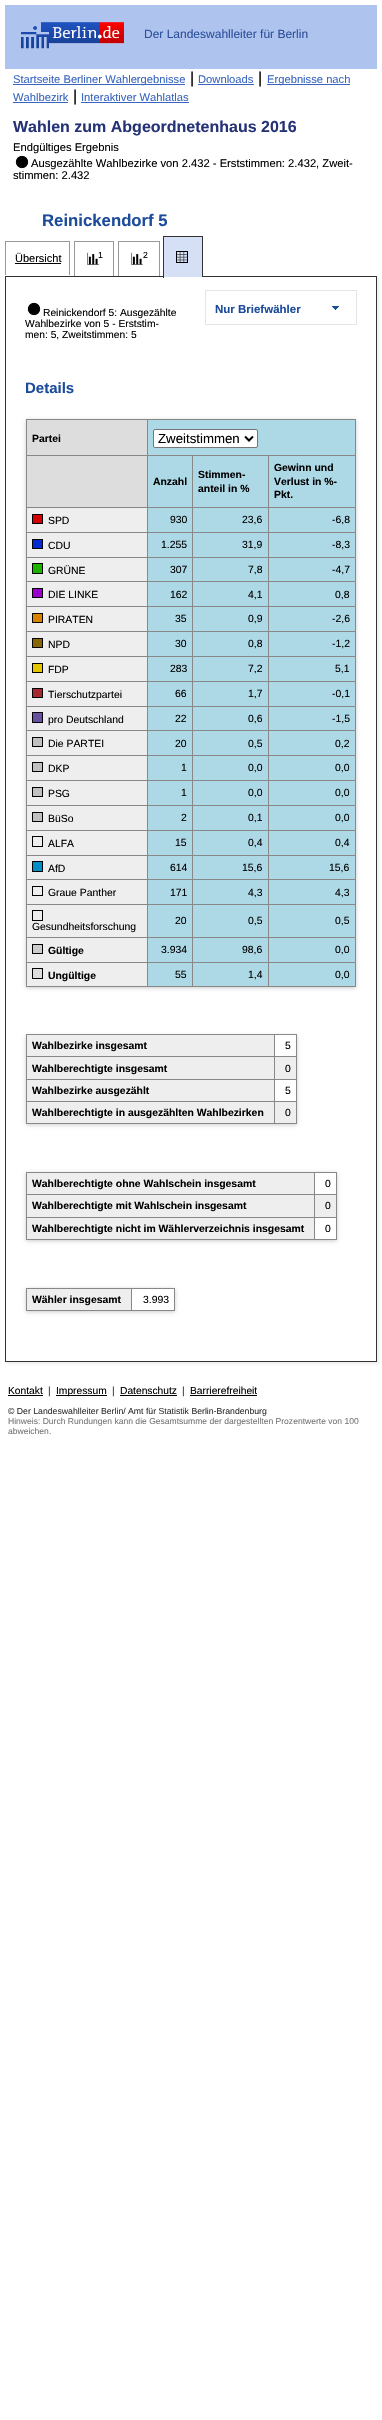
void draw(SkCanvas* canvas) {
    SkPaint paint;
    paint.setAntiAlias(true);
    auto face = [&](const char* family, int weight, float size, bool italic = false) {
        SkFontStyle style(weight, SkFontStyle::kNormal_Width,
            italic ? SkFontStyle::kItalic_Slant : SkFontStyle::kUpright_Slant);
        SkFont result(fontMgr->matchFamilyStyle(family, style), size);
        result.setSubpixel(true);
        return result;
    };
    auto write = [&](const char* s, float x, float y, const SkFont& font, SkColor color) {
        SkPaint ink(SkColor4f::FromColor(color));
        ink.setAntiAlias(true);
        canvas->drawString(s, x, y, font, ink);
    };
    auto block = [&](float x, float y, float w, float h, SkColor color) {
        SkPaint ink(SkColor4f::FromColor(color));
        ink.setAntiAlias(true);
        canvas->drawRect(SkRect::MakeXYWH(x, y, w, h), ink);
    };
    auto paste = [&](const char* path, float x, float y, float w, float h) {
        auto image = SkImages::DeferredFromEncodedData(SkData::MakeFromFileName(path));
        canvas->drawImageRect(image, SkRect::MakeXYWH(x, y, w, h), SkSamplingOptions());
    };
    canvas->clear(SK_ColorWHITE);
    block(5, 5, 372, 64, SkColorSetRGB(174, 195, 238));
    paste("pic1.png", 21, 22, 103, 27);
    auto kFont1 = face("Liberation Sans", 400, 12);
    write("Der Landeswahlleiter für Berlin", 144, 38, kFont1, SkColorSetRGB(45, 80, 154));
    block(13, 84, 172, 1, SkColorSetRGB(57, 101, 192));
    auto kFont2 = face("Liberation Sans", 400, 11.2f);
    write("Startseite Berliner Wahlergebnisse", 13, 83, kFont2, SkColorSetRGB(57, 101, 192));
    auto kFont3 = face("Liberation Sans", 400, 16);
    write("|", 190, 83, kFont3, SK_ColorBLACK);
    write("Downloads", 198, 83, kFont2, SkColorSetRGB(57, 101, 192));
    block(198, 84, 56, 1, SkColorSetRGB(57, 101, 192));
    write("|", 258, 83, kFont3, SK_ColorBLACK);
    block(267, 84, 83, 1, SkColorSetRGB(57, 101, 192));
    write("Ergebnisse nach", 267, 83, kFont2, SkColorSetRGB(57, 101, 192));
    write("Wahlbezirk", 13, 101, kFont2, SkColorSetRGB(57, 101, 192));
    block(13, 102, 55, 1, SkColorSetRGB(57, 101, 192));
    write("|", 73, 101, kFont3, SK_ColorBLACK);
    write("Interaktiver Wahlatlas", 81, 101, kFont2, SkColorSetRGB(57, 101, 192));
    block(81, 102, 108, 1, SkColorSetRGB(57, 101, 192));
    auto kFont4 = face("Liberation Sans", 700, 16);
    write("Wahlen zum Abgeordnetenhaus 2016", 13, 132, kFont4, SkColorSetRGB(37, 50, 118));
    write("Endgültiges Ergebnis", 13, 151, kFont2, SK_ColorBLACK);
    paste("pic2.png", 15, 155, 14, 14);
    write("Ausgezählte Wahlbezirke von 2.432 - Erststimmen: 2.432, Zweit-", 31, 167, kFont2, SK_ColorBLACK);
    write("stimmen: 2.432", 13, 179, kFont2, SK_ColorBLACK);
    auto kFont5 = face("Liberation Sans", 700, 16.75f);
    write("Reinickendorf 5", 42, 226, kFont5, SkColorSetRGB(29, 76, 155));
    block(5, 241, 65, 1, SkColorSetRGB(153, 153, 153));
    block(69, 241, 1, 34, SkColorSetRGB(153, 153, 153));
    block(5, 241, 1, 34, SkColorSetRGB(153, 153, 153));
    auto kFont6 = face("Liberation Sans", 400, 11);
    write("Übersicht", 15, 262, kFont6, SK_ColorBLACK);
    block(15, 263, 46, 1, SK_ColorBLACK);
    block(74, 241, 40, 1, SkColorSetRGB(153, 153, 153));
    block(113, 241, 1, 35, SkColorSetRGB(153, 153, 153));
    block(74, 241, 1, 35, SkColorSetRGB(153, 153, 153));
    paste("pic3.png", 87, 252, 12, 13);
    auto kFont7 = face("Liberation Sans", 400, 8.7f);
    write("1", 98, 258, kFont7, SK_ColorBLACK);
    block(118, 241, 42, 1, SkColorSetRGB(153, 153, 153));
    block(159, 241, 1, 35, SkColorSetRGB(153, 153, 153));
    block(118, 241, 1, 35, SkColorSetRGB(153, 153, 153));
    paste("pic3.png", 131, 252, 12, 13);
    write("2", 143, 258, kFont7, SK_ColorBLACK);
    canvas->save();
    canvas->clipPath(SkPathBuilder(SkPathFillType::kEvenOdd).moveTo(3, 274).lineTo(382, 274).lineTo(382, 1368).lineTo(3, 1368).close().moveTo(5, 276).lineTo(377, 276).lineTo(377, 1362).lineTo(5, 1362).close().detach(), true);
    paint.setColor(SkColorSetRGB(238, 238, 238));
    paint.setMaskFilter(SkMaskFilter::MakeBlur(kNormal_SkBlurStyle, 1));
    canvas->drawRect(SkRect::MakeXYWH(7, 278, 372, 1086), paint);
    paint.setMaskFilter(nullptr);
    canvas->restore();
    paint.setStyle(SkPaint::kStroke_Style);
    paint.setStrokeWidth(1);
    paint.setColor(SkColorSetRGB(51, 51, 51));
    canvas->drawRect(SkRect::MakeXYWH(5.5f, 276.5f, 371, 1085), paint);
    block(164, 237, 38, 40, SkColorSetRGB(213, 224, 246));
    block(163, 236, 40, 1, SkColorSetRGB(51, 51, 51));
    block(202, 236, 1, 42, SkColorSetRGB(51, 51, 51));
    block(202, 277, 1, 1, SK_ColorWHITE);
    block(163, 236, 1, 42, SkColorSetRGB(51, 51, 51));
    paste("pic4.png", 176, 251, 12, 12);
    paste("pic2.png", 27, 302, 14, 14);
    auto kFont8 = face("Liberation Sans", 400, 10.25f);
    write("Reinickendorf 5: Ausgezählte", 43, 316, kFont8, SK_ColorBLACK);
    write("Wahlbezirke von 5 - Erststim-", 25, 327, kFont8, SK_ColorBLACK);
    write("men: 5, Zweitstimmen: 5", 25, 338, kFont8, SK_ColorBLACK);
    paint.setColor(SkColorSetRGB(229, 229, 229));
    canvas->drawRect(SkRect::MakeXYWH(205.5f, 290.5f, 151, 34), paint);
    auto kFont9 = face("Liberation Sans", 700, 11.5f);
    write("Nur Briefwähler", 215, 313, kFont9, SkColorSetRGB(29, 76, 155));
    paste("pic5.png", 332, 306, 7, 4);
    auto kFont10 = face("Liberation Sans", 700, 15);
    write("Details", 25, 393, kFont10, SkColorSetRGB(29, 76, 155));
    paint.setStyle(SkPaint::kFill_Style);
    paint.setColor(SkColorSetRGB(204, 204, 204));
    paint.setMaskFilter(SkMaskFilter::MakeBlur(kNormal_SkBlurStyle, 2));
    canvas->drawRect(SkRect::MakeXYWH(26, 420, 330, 568), paint);
    paint.setMaskFilter(nullptr);
    block(27, 420, 120, 35, SkColorSetRGB(221, 221, 221));
    block(26, 419, 330, 1, SkColorSetRGB(136, 136, 136));
    block(26, 455, 330, 1, SkColorSetRGB(136, 136, 136));
    block(26, 507, 330, 1, SkColorSetRGB(136, 136, 136));
    block(27, 508, 120, 478, SkColorSetRGB(238, 238, 238));
    block(26, 532, 330, 1, SkColorSetRGB(136, 136, 136));
    block(26, 557, 330, 1, SkColorSetRGB(136, 136, 136));
    block(26, 581, 330, 1, SkColorSetRGB(136, 136, 136));
    block(26, 606, 330, 1, SkColorSetRGB(136, 136, 136));
    block(26, 631, 330, 1, SkColorSetRGB(136, 136, 136));
    block(26, 656, 330, 1, SkColorSetRGB(136, 136, 136));
    block(26, 681, 330, 1, SkColorSetRGB(136, 136, 136));
    block(26, 706, 330, 1, SkColorSetRGB(136, 136, 136));
    block(26, 730, 330, 1, SkColorSetRGB(136, 136, 136));
    block(26, 755, 330, 1, SkColorSetRGB(136, 136, 136));
    block(26, 780, 330, 1, SkColorSetRGB(136, 136, 136));
    block(26, 805, 330, 1, SkColorSetRGB(136, 136, 136));
    block(26, 830, 330, 1, SkColorSetRGB(136, 136, 136));
    block(26, 855, 330, 1, SkColorSetRGB(136, 136, 136));
    block(26, 879, 330, 1, SkColorSetRGB(136, 136, 136));
    block(26, 904, 330, 1, SkColorSetRGB(136, 136, 136));
    block(26, 937, 330, 1, SkColorSetRGB(136, 136, 136));
    block(26, 962, 330, 1, SkColorSetRGB(136, 136, 136));
    block(355, 962, 1, 25, SkColorSetRGB(136, 136, 136));
    block(268, 986, 88, 1, SkColorSetRGB(136, 136, 136));
    block(268, 962, 1, 25, SkColorSetRGB(136, 136, 136));
    block(192, 986, 77, 1, SkColorSetRGB(136, 136, 136));
    block(192, 962, 1, 25, SkColorSetRGB(136, 136, 136));
    block(147, 986, 46, 1, SkColorSetRGB(136, 136, 136));
    block(147, 962, 1, 25, SkColorSetRGB(136, 136, 136));
    block(147, 937, 1, 26, SkColorSetRGB(136, 136, 136));
    block(147, 904, 1, 34, SkColorSetRGB(136, 136, 136));
    block(147, 879, 1, 26, SkColorSetRGB(136, 136, 136));
    block(147, 855, 1, 25, SkColorSetRGB(136, 136, 136));
    block(147, 830, 1, 26, SkColorSetRGB(136, 136, 136));
    block(147, 805, 1, 26, SkColorSetRGB(136, 136, 136));
    block(147, 780, 1, 26, SkColorSetRGB(136, 136, 136));
    block(147, 755, 1, 26, SkColorSetRGB(136, 136, 136));
    block(147, 730, 1, 26, SkColorSetRGB(136, 136, 136));
    block(147, 706, 1, 25, SkColorSetRGB(136, 136, 136));
    block(147, 681, 1, 26, SkColorSetRGB(136, 136, 136));
    block(147, 656, 1, 26, SkColorSetRGB(136, 136, 136));
    block(147, 631, 1, 26, SkColorSetRGB(136, 136, 136));
    block(147, 606, 1, 26, SkColorSetRGB(136, 136, 136));
    block(147, 581, 1, 26, SkColorSetRGB(136, 136, 136));
    block(147, 557, 1, 25, SkColorSetRGB(136, 136, 136));
    block(147, 532, 1, 26, SkColorSetRGB(136, 136, 136));
    block(147, 507, 1, 26, SkColorSetRGB(136, 136, 136));
    block(147, 455, 1, 53, SkColorSetRGB(136, 136, 136));
    block(147, 419, 1, 37, SkColorSetRGB(136, 136, 136));
    block(26, 986, 122, 1, SkColorSetRGB(136, 136, 136));
    block(26, 962, 1, 25, SkColorSetRGB(136, 136, 136));
    block(26, 937, 1, 26, SkColorSetRGB(136, 136, 136));
    block(26, 904, 1, 34, SkColorSetRGB(136, 136, 136));
    block(26, 879, 1, 26, SkColorSetRGB(136, 136, 136));
    block(26, 855, 1, 25, SkColorSetRGB(136, 136, 136));
    block(26, 830, 1, 26, SkColorSetRGB(136, 136, 136));
    block(26, 805, 1, 26, SkColorSetRGB(136, 136, 136));
    block(26, 780, 1, 26, SkColorSetRGB(136, 136, 136));
    block(26, 755, 1, 26, SkColorSetRGB(136, 136, 136));
    block(26, 730, 1, 26, SkColorSetRGB(136, 136, 136));
    block(26, 706, 1, 25, SkColorSetRGB(136, 136, 136));
    block(26, 681, 1, 26, SkColorSetRGB(136, 136, 136));
    block(26, 656, 1, 26, SkColorSetRGB(136, 136, 136));
    block(26, 631, 1, 26, SkColorSetRGB(136, 136, 136));
    block(26, 606, 1, 26, SkColorSetRGB(136, 136, 136));
    block(26, 581, 1, 26, SkColorSetRGB(136, 136, 136));
    block(26, 557, 1, 25, SkColorSetRGB(136, 136, 136));
    block(26, 532, 1, 26, SkColorSetRGB(136, 136, 136));
    block(26, 507, 1, 26, SkColorSetRGB(136, 136, 136));
    block(26, 455, 1, 53, SkColorSetRGB(136, 136, 136));
    block(26, 419, 1, 37, SkColorSetRGB(136, 136, 136));
    auto kFont11 = face("Liberation Sans", 700, 10.4f);
    write("Partei", 32, 442, kFont11, SK_ColorBLACK);
    block(148, 420, 207, 35, SkColorSetRGB(173, 216, 230));
    block(355, 937, 1, 26, SkColorSetRGB(136, 136, 136));
    block(355, 904, 1, 34, SkColorSetRGB(136, 136, 136));
    block(355, 879, 1, 26, SkColorSetRGB(136, 136, 136));
    block(355, 855, 1, 25, SkColorSetRGB(136, 136, 136));
    block(355, 830, 1, 26, SkColorSetRGB(136, 136, 136));
    block(355, 805, 1, 26, SkColorSetRGB(136, 136, 136));
    block(355, 780, 1, 26, SkColorSetRGB(136, 136, 136));
    block(355, 755, 1, 26, SkColorSetRGB(136, 136, 136));
    block(355, 730, 1, 26, SkColorSetRGB(136, 136, 136));
    block(355, 706, 1, 25, SkColorSetRGB(136, 136, 136));
    block(355, 681, 1, 26, SkColorSetRGB(136, 136, 136));
    block(355, 656, 1, 26, SkColorSetRGB(136, 136, 136));
    block(355, 631, 1, 26, SkColorSetRGB(136, 136, 136));
    block(355, 606, 1, 26, SkColorSetRGB(136, 136, 136));
    block(355, 581, 1, 26, SkColorSetRGB(136, 136, 136));
    block(355, 557, 1, 25, SkColorSetRGB(136, 136, 136));
    block(355, 532, 1, 26, SkColorSetRGB(136, 136, 136));
    block(355, 507, 1, 26, SkColorSetRGB(136, 136, 136));
    block(355, 455, 1, 53, SkColorSetRGB(136, 136, 136));
    block(355, 419, 1, 37, SkColorSetRGB(136, 136, 136));
    paint.setColor(SK_ColorWHITE);
    canvas->drawRoundRect(SkRect::MakeXYWH(153.5f, 429.5f, 104, 18), 1.5f, 1.5f, paint);
    paint.setStyle(SkPaint::kStroke_Style);
    paint.setColor(SkColorSetRGB(118, 118, 118));
    canvas->drawRoundRect(SkRect::MakeXYWH(153.5f, 429.5f, 104, 18), 1.5f, 1.5f, paint);
    paint.setStrokeWidth(2);
    paint.setColor(SK_ColorBLACK);
    canvas->drawPath(SkPathBuilder().moveTo(245, 436.5f).lineTo(249, 440.5f).lineTo(253, 436.5f).detach(), paint);
    auto kFont12 = face("Liberation Sans", 400, 13.25f);
    write("Zweitstimmen", 158, 443, kFont12, SK_ColorBLACK);
    block(27, 456, 120, 51, SkColorSetRGB(221, 221, 221));
    block(148, 456, 44, 51, SkColorSetRGB(173, 216, 230));
    block(192, 937, 1, 26, SkColorSetRGB(136, 136, 136));
    block(192, 904, 1, 34, SkColorSetRGB(136, 136, 136));
    block(192, 879, 1, 26, SkColorSetRGB(136, 136, 136));
    block(192, 855, 1, 25, SkColorSetRGB(136, 136, 136));
    block(192, 830, 1, 26, SkColorSetRGB(136, 136, 136));
    block(192, 805, 1, 26, SkColorSetRGB(136, 136, 136));
    block(192, 780, 1, 26, SkColorSetRGB(136, 136, 136));
    block(192, 755, 1, 26, SkColorSetRGB(136, 136, 136));
    block(192, 730, 1, 26, SkColorSetRGB(136, 136, 136));
    block(192, 706, 1, 25, SkColorSetRGB(136, 136, 136));
    block(192, 681, 1, 26, SkColorSetRGB(136, 136, 136));
    block(192, 656, 1, 26, SkColorSetRGB(136, 136, 136));
    block(192, 631, 1, 26, SkColorSetRGB(136, 136, 136));
    block(192, 606, 1, 26, SkColorSetRGB(136, 136, 136));
    block(192, 581, 1, 26, SkColorSetRGB(136, 136, 136));
    block(192, 557, 1, 25, SkColorSetRGB(136, 136, 136));
    block(192, 532, 1, 26, SkColorSetRGB(136, 136, 136));
    block(192, 507, 1, 26, SkColorSetRGB(136, 136, 136));
    block(192, 455, 1, 53, SkColorSetRGB(136, 136, 136));
    write("Anzahl", 153, 485, kFont11, SK_ColorBLACK);
    block(193, 456, 75, 51, SkColorSetRGB(173, 216, 230));
    block(268, 937, 1, 26, SkColorSetRGB(136, 136, 136));
    block(268, 904, 1, 34, SkColorSetRGB(136, 136, 136));
    block(268, 879, 1, 26, SkColorSetRGB(136, 136, 136));
    block(268, 855, 1, 25, SkColorSetRGB(136, 136, 136));
    block(268, 830, 1, 26, SkColorSetRGB(136, 136, 136));
    block(268, 805, 1, 26, SkColorSetRGB(136, 136, 136));
    block(268, 780, 1, 26, SkColorSetRGB(136, 136, 136));
    block(268, 755, 1, 26, SkColorSetRGB(136, 136, 136));
    block(268, 730, 1, 26, SkColorSetRGB(136, 136, 136));
    block(268, 706, 1, 25, SkColorSetRGB(136, 136, 136));
    block(268, 681, 1, 26, SkColorSetRGB(136, 136, 136));
    block(268, 656, 1, 26, SkColorSetRGB(136, 136, 136));
    block(268, 631, 1, 26, SkColorSetRGB(136, 136, 136));
    block(268, 606, 1, 26, SkColorSetRGB(136, 136, 136));
    block(268, 581, 1, 26, SkColorSetRGB(136, 136, 136));
    block(268, 557, 1, 25, SkColorSetRGB(136, 136, 136));
    block(268, 532, 1, 26, SkColorSetRGB(136, 136, 136));
    block(268, 507, 1, 26, SkColorSetRGB(136, 136, 136));
    block(268, 455, 1, 53, SkColorSetRGB(136, 136, 136));
    write("Stimmen-", 198, 478, kFont11, SK_ColorBLACK);
    write("anteil in %", 198, 492, kFont11, SK_ColorBLACK);
    block(269, 456, 86, 51, SkColorSetRGB(173, 216, 230));
    write("Gewinn und", 274, 471, kFont11, SK_ColorBLACK);
    write("Verlust in %-", 274, 485, kFont11, SK_ColorBLACK);
    write("Pkt.", 274, 498, kFont11, SK_ColorBLACK);
    paint.setStyle(SkPaint::kFill_Style);
    paint.setColor(SkColorSetRGB(210, 0, 0));
    canvas->drawRect(SkRect::MakeXYWH(32.5f, 514.5f, 10, 9), paint);
    paint.setStyle(SkPaint::kStroke_Style);
    paint.setStrokeWidth(1);
    paint.setColor(SK_ColorBLACK);
    canvas->drawRect(SkRect::MakeXYWH(32.5f, 514.5f, 10, 9), paint);
    auto kFont13 = face("Liberation Sans", 400, 10.4f);
    write("SPD", 48, 524, kFont13, SK_ColorBLACK);
    block(148, 508, 44, 24, SkColorSetRGB(173, 216, 230));
    write("930", 170, 523, kFont13, SK_ColorBLACK);
    block(193, 508, 75, 24, SkColorSetRGB(173, 216, 230));
    write("23,6", 242, 523, kFont13, SK_ColorBLACK);
    block(269, 508, 86, 24, SkColorSetRGB(173, 216, 230));
    write("-6,8", 332, 523, kFont13, SK_ColorBLACK);
    paint.setStyle(SkPaint::kFill_Style);
    paint.setColor(SkColorSetRGB(0, 42, 210));
    canvas->drawRect(SkRect::MakeXYWH(32.5f, 539.5f, 10, 9), paint);
    paint.setStyle(SkPaint::kStroke_Style);
    paint.setColor(SK_ColorBLACK);
    canvas->drawRect(SkRect::MakeXYWH(32.5f, 539.5f, 10, 9), paint);
    write("CDU", 48, 549, kFont13, SK_ColorBLACK);
    block(148, 533, 44, 24, SkColorSetRGB(173, 216, 230));
    write("1.255", 161, 548, kFont13, SK_ColorBLACK);
    block(193, 533, 75, 24, SkColorSetRGB(173, 216, 230));
    write("31,9", 242, 548, kFont13, SK_ColorBLACK);
    block(269, 533, 86, 24, SkColorSetRGB(173, 216, 230));
    write("-8,3", 332, 548, kFont13, SK_ColorBLACK);
    paint.setStyle(SkPaint::kFill_Style);
    paint.setColor(SkColorSetRGB(30, 178, 0));
    canvas->drawRect(SkRect::MakeXYWH(32.5f, 563.5f, 10, 10), paint);
    paint.setStyle(SkPaint::kStroke_Style);
    paint.setColor(SK_ColorBLACK);
    canvas->drawRect(SkRect::MakeXYWH(32.5f, 563.5f, 10, 10), paint);
    write("GRÜNE", 48, 574, kFont13, SK_ColorBLACK);
    block(148, 558, 44, 23, SkColorSetRGB(173, 216, 230));
    write("307", 170, 573, kFont13, SK_ColorBLACK);
    block(193, 558, 75, 23, SkColorSetRGB(173, 216, 230));
    write("7,8", 248, 573, kFont13, SK_ColorBLACK);
    block(269, 558, 86, 23, SkColorSetRGB(173, 216, 230));
    write("-4,7", 332, 573, kFont13, SK_ColorBLACK);
    paint.setStyle(SkPaint::kFill_Style);
    paint.setColor(SkColorSetRGB(153, 0, 204));
    canvas->drawRect(SkRect::MakeXYWH(32.5f, 588.5f, 10, 9), paint);
    paint.setStyle(SkPaint::kStroke_Style);
    paint.setColor(SK_ColorBLACK);
    canvas->drawRect(SkRect::MakeXYWH(32.5f, 588.5f, 10, 9), paint);
    write("DIE LINKE", 48, 598, kFont13, SK_ColorBLACK);
    block(148, 582, 44, 24, SkColorSetRGB(173, 216, 230));
    write("162", 170, 598, kFont13, SK_ColorBLACK);
    block(193, 582, 75, 24, SkColorSetRGB(173, 216, 230));
    write("4,1", 248, 598, kFont13, SK_ColorBLACK);
    block(269, 582, 86, 24, SkColorSetRGB(173, 216, 230));
    write("0,8", 335, 598, kFont13, SK_ColorBLACK);
    paint.setStyle(SkPaint::kFill_Style);
    paint.setColor(SkColorSetRGB(217, 130, 0));
    canvas->drawRect(SkRect::MakeXYWH(32.5f, 613.5f, 10, 9), paint);
    paint.setStyle(SkPaint::kStroke_Style);
    paint.setColor(SK_ColorBLACK);
    canvas->drawRect(SkRect::MakeXYWH(32.5f, 613.5f, 10, 9), paint);
    write("PIRATEN", 48, 623, kFont13, SK_ColorBLACK);
    block(148, 607, 44, 24, SkColorSetRGB(173, 216, 230));
    write("35", 175, 622, kFont13, SK_ColorBLACK);
    block(193, 607, 75, 24, SkColorSetRGB(173, 216, 230));
    write("0,9", 248, 622, kFont13, SK_ColorBLACK);
    block(269, 607, 86, 24, SkColorSetRGB(173, 216, 230));
    write("-2,6", 332, 622, kFont13, SK_ColorBLACK);
    paint.setStyle(SkPaint::kFill_Style);
    paint.setColor(SkColorSetRGB(135, 102, 3));
    canvas->drawRect(SkRect::MakeXYWH(32.5f, 638.5f, 10, 9), paint);
    paint.setStyle(SkPaint::kStroke_Style);
    paint.setColor(SK_ColorBLACK);
    canvas->drawRect(SkRect::MakeXYWH(32.5f, 638.5f, 10, 9), paint);
    write("NPD", 48, 648, kFont13, SK_ColorBLACK);
    block(148, 632, 44, 24, SkColorSetRGB(173, 216, 230));
    write("30", 175, 647, kFont13, SK_ColorBLACK);
    block(193, 632, 75, 24, SkColorSetRGB(173, 216, 230));
    write("0,8", 248, 647, kFont13, SK_ColorBLACK);
    block(269, 632, 86, 24, SkColorSetRGB(173, 216, 230));
    write("-1,2", 332, 647, kFont13, SK_ColorBLACK);
    paint.setStyle(SkPaint::kFill_Style);
    paint.setColor(SkColorSetRGB(228, 198, 0));
    canvas->drawRect(SkRect::MakeXYWH(32.5f, 663.5f, 10, 9), paint);
    paint.setStyle(SkPaint::kStroke_Style);
    paint.setColor(SK_ColorBLACK);
    canvas->drawRect(SkRect::MakeXYWH(32.5f, 663.5f, 10, 9), paint);
    write("FDP", 48, 673, kFont13, SK_ColorBLACK);
    block(148, 657, 44, 24, SkColorSetRGB(173, 216, 230));
    write("283", 170, 672, kFont13, SK_ColorBLACK);
    block(193, 657, 75, 24, SkColorSetRGB(173, 216, 230));
    write("7,2", 248, 672, kFont13, SK_ColorBLACK);
    block(269, 657, 86, 24, SkColorSetRGB(173, 216, 230));
    write("5,1", 335, 672, kFont13, SK_ColorBLACK);
    paint.setStyle(SkPaint::kFill_Style);
    paint.setColor(SkColorSetRGB(167, 41, 48));
    canvas->drawRect(SkRect::MakeXYWH(32.5f, 688.5f, 10, 9), paint);
    paint.setStyle(SkPaint::kStroke_Style);
    paint.setColor(SK_ColorBLACK);
    canvas->drawRect(SkRect::MakeXYWH(32.5f, 688.5f, 10, 9), paint);
    write("Tierschutzpartei", 48, 698, kFont13, SK_ColorBLACK);
    block(148, 682, 44, 24, SkColorSetRGB(173, 216, 230));
    write("66", 175, 697, kFont13, SK_ColorBLACK);
    block(193, 682, 75, 24, SkColorSetRGB(173, 216, 230));
    write("1,7", 248, 697, kFont13, SK_ColorBLACK);
    block(269, 682, 86, 24, SkColorSetRGB(173, 216, 230));
    write("-0,1", 332, 697, kFont13, SK_ColorBLACK);
    paint.setStyle(SkPaint::kFill_Style);
    paint.setColor(SkColorSetRGB(102, 80, 159));
    canvas->drawRect(SkRect::MakeXYWH(32.5f, 712.5f, 10, 10), paint);
    paint.setStyle(SkPaint::kStroke_Style);
    paint.setColor(SK_ColorBLACK);
    canvas->drawRect(SkRect::MakeXYWH(32.5f, 712.5f, 10, 10), paint);
    write("pro Deutschland", 48, 723, kFont13, SK_ColorBLACK);
    block(148, 707, 44, 23, SkColorSetRGB(173, 216, 230));
    write("22", 175, 722, kFont13, SK_ColorBLACK);
    block(193, 707, 75, 23, SkColorSetRGB(173, 216, 230));
    write("0,6", 248, 722, kFont13, SK_ColorBLACK);
    block(269, 707, 86, 23, SkColorSetRGB(173, 216, 230));
    write("-1,5", 332, 722, kFont13, SK_ColorBLACK);
    paint.setStyle(SkPaint::kFill_Style);
    paint.setColor(SkColorSetRGB(192, 192, 192));
    canvas->drawRect(SkRect::MakeXYWH(32.5f, 737.5f, 10, 9), paint);
    paint.setStyle(SkPaint::kStroke_Style);
    paint.setColor(SK_ColorBLACK);
    canvas->drawRect(SkRect::MakeXYWH(32.5f, 737.5f, 10, 9), paint);
    write("Die PARTEI", 48, 747, kFont13, SK_ColorBLACK);
    block(148, 731, 44, 24, SkColorSetRGB(173, 216, 230));
    write("20", 175, 747, kFont13, SK_ColorBLACK);
    block(193, 731, 75, 24, SkColorSetRGB(173, 216, 230));
    write("0,5", 248, 747, kFont13, SK_ColorBLACK);
    block(269, 731, 86, 24, SkColorSetRGB(173, 216, 230));
    write("0,2", 335, 747, kFont13, SK_ColorBLACK);
    paint.setStyle(SkPaint::kFill_Style);
    paint.setColor(SkColorSetRGB(192, 192, 192));
    canvas->drawRect(SkRect::MakeXYWH(32.5f, 762.5f, 10, 9), paint);
    paint.setStyle(SkPaint::kStroke_Style);
    paint.setColor(SK_ColorBLACK);
    canvas->drawRect(SkRect::MakeXYWH(32.5f, 762.5f, 10, 9), paint);
    write("DKP", 48, 772, kFont13, SK_ColorBLACK);
    block(148, 756, 44, 24, SkColorSetRGB(173, 216, 230));
    write("1", 181, 771, kFont13, SK_ColorBLACK);
    block(193, 756, 75, 24, SkColorSetRGB(173, 216, 230));
    write("0,0", 248, 771, kFont13, SK_ColorBLACK);
    block(269, 756, 86, 24, SkColorSetRGB(173, 216, 230));
    write("0,0", 335, 771, kFont13, SK_ColorBLACK);
    paint.setStyle(SkPaint::kFill_Style);
    paint.setColor(SkColorSetRGB(192, 192, 192));
    canvas->drawRect(SkRect::MakeXYWH(32.5f, 787.5f, 10, 9), paint);
    paint.setStyle(SkPaint::kStroke_Style);
    paint.setColor(SK_ColorBLACK);
    canvas->drawRect(SkRect::MakeXYWH(32.5f, 787.5f, 10, 9), paint);
    write("PSG", 48, 797, kFont13, SK_ColorBLACK);
    block(148, 781, 44, 24, SkColorSetRGB(173, 216, 230));
    write("1", 181, 796, kFont13, SK_ColorBLACK);
    block(193, 781, 75, 24, SkColorSetRGB(173, 216, 230));
    write("0,0", 248, 796, kFont13, SK_ColorBLACK);
    block(269, 781, 86, 24, SkColorSetRGB(173, 216, 230));
    write("0,0", 335, 796, kFont13, SK_ColorBLACK);
    paint.setStyle(SkPaint::kFill_Style);
    paint.setColor(SkColorSetRGB(192, 192, 192));
    canvas->drawRect(SkRect::MakeXYWH(32.5f, 812.5f, 10, 9), paint);
    paint.setStyle(SkPaint::kStroke_Style);
    paint.setColor(SK_ColorBLACK);
    canvas->drawRect(SkRect::MakeXYWH(32.5f, 812.5f, 10, 9), paint);
    write("BüSo", 48, 822, kFont13, SK_ColorBLACK);
    block(148, 806, 44, 24, SkColorSetRGB(173, 216, 230));
    write("2", 181, 821, kFont13, SK_ColorBLACK);
    block(193, 806, 75, 24, SkColorSetRGB(173, 216, 230));
    write("0,1", 248, 821, kFont13, SK_ColorBLACK);
    block(269, 806, 86, 24, SkColorSetRGB(173, 216, 230));
    write("0,0", 335, 821, kFont13, SK_ColorBLACK);
    canvas->drawRect(SkRect::MakeXYWH(32.5f, 836.5f, 10, 10), paint);
    write("ALFA", 48, 847, kFont13, SK_ColorBLACK);
    block(148, 831, 44, 24, SkColorSetRGB(173, 216, 230));
    write("15", 175, 846, kFont13, SK_ColorBLACK);
    block(193, 831, 75, 24, SkColorSetRGB(173, 216, 230));
    write("0,4", 248, 846, kFont13, SK_ColorBLACK);
    block(269, 831, 86, 24, SkColorSetRGB(173, 216, 230));
    write("0,4", 335, 846, kFont13, SK_ColorBLACK);
    paint.setStyle(SkPaint::kFill_Style);
    paint.setColor(SkColorSetRGB(1, 141, 197));
    canvas->drawRect(SkRect::MakeXYWH(32.5f, 861.5f, 10, 10), paint);
    paint.setStyle(SkPaint::kStroke_Style);
    paint.setColor(SK_ColorBLACK);
    canvas->drawRect(SkRect::MakeXYWH(32.5f, 861.5f, 10, 10), paint);
    write("AfD", 48, 872, kFont13, SK_ColorBLACK);
    block(148, 856, 44, 23, SkColorSetRGB(173, 216, 230));
    write("614", 170, 871, kFont13, SK_ColorBLACK);
    block(193, 856, 75, 23, SkColorSetRGB(173, 216, 230));
    write("15,6", 242, 871, kFont13, SK_ColorBLACK);
    block(269, 856, 86, 23, SkColorSetRGB(173, 216, 230));
    write("15,6", 329, 871, kFont13, SK_ColorBLACK);
    canvas->drawRect(SkRect::MakeXYWH(32.5f, 886.5f, 10, 9), paint);
    write("Graue Panther", 48, 896, kFont13, SK_ColorBLACK);
    block(148, 880, 44, 24, SkColorSetRGB(173, 216, 230));
    write("171", 170, 896, kFont13, SK_ColorBLACK);
    block(193, 880, 75, 24, SkColorSetRGB(173, 216, 230));
    write("4,3", 248, 896, kFont13, SK_ColorBLACK);
    block(269, 880, 86, 24, SkColorSetRGB(173, 216, 230));
    write("4,3", 335, 896, kFont13, SK_ColorBLACK);
    block(148, 905, 44, 32, SkColorSetRGB(173, 216, 230));
    write("20", 175, 924, kFont13, SK_ColorBLACK);
    block(193, 905, 75, 32, SkColorSetRGB(173, 216, 230));
    write("0,5", 248, 924, kFont13, SK_ColorBLACK);
    block(269, 905, 86, 32, SkColorSetRGB(173, 216, 230));
    write("0,5", 335, 924, kFont13, SK_ColorBLACK);
    canvas->drawRect(SkRect::MakeXYWH(32.5f, 910.5f, 10, 10), paint);
    write("Gesundheitsforschung", 32, 930, kFont13, SK_ColorBLACK);
    paint.setStyle(SkPaint::kFill_Style);
    paint.setColor(SkColorSetRGB(204, 204, 204));
    canvas->drawRect(SkRect::MakeXYWH(32.5f, 944.5f, 10, 9), paint);
    paint.setStyle(SkPaint::kStroke_Style);
    paint.setColor(SK_ColorBLACK);
    canvas->drawRect(SkRect::MakeXYWH(32.5f, 944.5f, 10, 9), paint);
    write("Gültige", 48, 954, kFont11, SK_ColorBLACK);
    block(148, 938, 44, 24, SkColorSetRGB(173, 216, 230));
    write("3.934", 161, 953, kFont13, SK_ColorBLACK);
    block(193, 938, 75, 24, SkColorSetRGB(173, 216, 230));
    write("98,6", 242, 953, kFont13, SK_ColorBLACK);
    block(269, 938, 86, 24, SkColorSetRGB(173, 216, 230));
    write("0,0", 335, 953, kFont13, SK_ColorBLACK);
    paint.setStyle(SkPaint::kFill_Style);
    paint.setColor(SkColorSetRGB(221, 221, 221));
    canvas->drawRect(SkRect::MakeXYWH(32.5f, 968.5f, 10, 10), paint);
    paint.setStyle(SkPaint::kStroke_Style);
    paint.setColor(SK_ColorBLACK);
    canvas->drawRect(SkRect::MakeXYWH(32.5f, 968.5f, 10, 10), paint);
    write("Ungültige", 48, 979, kFont11, SK_ColorBLACK);
    block(148, 963, 44, 23, SkColorSetRGB(173, 216, 230));
    write("55", 175, 978, kFont13, SK_ColorBLACK);
    block(193, 963, 75, 23, SkColorSetRGB(173, 216, 230));
    write("1,4", 248, 978, kFont13, SK_ColorBLACK);
    block(269, 963, 86, 23, SkColorSetRGB(173, 216, 230));
    write("0,0", 335, 978, kFont13, SK_ColorBLACK);
    canvas->save();
    canvas->clipPath(SkPathBuilder(SkPathFillType::kEvenOdd).moveTo(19, 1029).lineTo(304, 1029).lineTo(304, 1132).lineTo(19, 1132).close().moveTo(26, 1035).lineTo(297, 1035).lineTo(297, 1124).lineTo(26, 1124).close().detach(), true);
    paint.setStyle(SkPaint::kFill_Style);
    paint.setColor(SkColorSetRGB(204, 204, 204));
    paint.setMaskFilter(SkMaskFilter::MakeBlur(kNormal_SkBlurStyle, 2));
    canvas->drawRect(SkRect::MakeXYWH(26, 1036, 271, 89), paint);
    paint.setMaskFilter(nullptr);
    canvas->restore();
    block(27, 1035, 247, 21, SkColorSetRGB(238, 238, 238));
    block(274, 1034, 23, 1, SkColorSetRGB(136, 136, 136));
    block(274, 1056, 23, 1, SkColorSetRGB(136, 136, 136));
    block(27, 1057, 269, 22, SkColorSetRGB(238, 238, 238));
    block(274, 1079, 23, 1, SkColorSetRGB(136, 136, 136));
    block(274, 1101, 23, 1, SkColorSetRGB(136, 136, 136));
    block(27, 1102, 269, 21, SkColorSetRGB(238, 238, 238));
    block(296, 1101, 1, 23, SkColorSetRGB(136, 136, 136));
    block(274, 1123, 23, 1, SkColorSetRGB(136, 136, 136));
    block(274, 1101, 1, 23, SkColorSetRGB(136, 136, 136));
    block(26, 1101, 249, 1, SkColorSetRGB(136, 136, 136));
    block(274, 1079, 1, 23, SkColorSetRGB(136, 136, 136));
    block(26, 1079, 249, 1, SkColorSetRGB(136, 136, 136));
    block(274, 1056, 1, 24, SkColorSetRGB(136, 136, 136));
    block(26, 1056, 249, 1, SkColorSetRGB(136, 136, 136));
    block(274, 1034, 1, 23, SkColorSetRGB(136, 136, 136));
    block(26, 1034, 249, 1, SkColorSetRGB(136, 136, 136));
    block(26, 1123, 249, 1, SkColorSetRGB(136, 136, 136));
    block(26, 1101, 1, 23, SkColorSetRGB(136, 136, 136));
    block(26, 1079, 1, 23, SkColorSetRGB(136, 136, 136));
    block(26, 1056, 1, 24, SkColorSetRGB(136, 136, 136));
    block(26, 1034, 1, 23, SkColorSetRGB(136, 136, 136));
    write("Wahlbezirke insgesamt", 32, 1049, kFont11, SK_ColorBLACK);
    block(296, 1079, 1, 23, SkColorSetRGB(136, 136, 136));
    block(296, 1056, 1, 24, SkColorSetRGB(136, 136, 136));
    block(296, 1034, 1, 23, SkColorSetRGB(136, 136, 136));
    write("5", 285, 1049, kFont13, SK_ColorBLACK);
    write("Wahlberechtigte insgesamt", 32, 1072, kFont11, SK_ColorBLACK);
    write("0", 285, 1072, kFont13, SK_ColorBLACK);
    block(27, 1080, 247, 21, SkColorSetRGB(238, 238, 238));
    write("Wahlbezirke ausgezählt", 32, 1094, kFont11, SK_ColorBLACK);
    write("5", 285, 1094, kFont13, SK_ColorBLACK);
    write("Wahlberechtigte in ausgezählten Wahlbezirken", 32, 1116, kFont11, SK_ColorBLACK);
    write("0", 285, 1116, kFont13, SK_ColorBLACK);
    canvas->save();
    canvas->clipPath(SkPathBuilder(SkPathFillType::kEvenOdd).moveTo(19, 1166).lineTo(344, 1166).lineTo(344, 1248).lineTo(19, 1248).close().moveTo(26, 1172).lineTo(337, 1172).lineTo(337, 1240).lineTo(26, 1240).close().detach(), true);
    paint.setMaskFilter(SkMaskFilter::MakeBlur(kNormal_SkBlurStyle, 2));
    canvas->drawRect(SkRect::MakeXYWH(26, 1173, 311, 68), paint);
    paint.setMaskFilter(nullptr);
    canvas->restore();
    block(27, 1173, 287, 21, SkColorSetRGB(238, 238, 238));
    block(314, 1172, 23, 1, SkColorSetRGB(136, 136, 136));
    block(314, 1194, 23, 1, SkColorSetRGB(136, 136, 136));
    block(27, 1195, 309, 22, SkColorSetRGB(238, 238, 238));
    block(314, 1217, 23, 1, SkColorSetRGB(136, 136, 136));
    block(336, 1217, 1, 23, SkColorSetRGB(136, 136, 136));
    block(314, 1239, 23, 1, SkColorSetRGB(136, 136, 136));
    block(314, 1217, 1, 23, SkColorSetRGB(136, 136, 136));
    block(26, 1217, 289, 1, SkColorSetRGB(136, 136, 136));
    block(314, 1194, 1, 24, SkColorSetRGB(136, 136, 136));
    block(26, 1194, 289, 1, SkColorSetRGB(136, 136, 136));
    block(314, 1172, 1, 23, SkColorSetRGB(136, 136, 136));
    block(26, 1172, 289, 1, SkColorSetRGB(136, 136, 136));
    block(26, 1239, 289, 1, SkColorSetRGB(136, 136, 136));
    block(26, 1217, 1, 23, SkColorSetRGB(136, 136, 136));
    block(26, 1194, 1, 24, SkColorSetRGB(136, 136, 136));
    block(26, 1172, 1, 23, SkColorSetRGB(136, 136, 136));
    write("Wahlberechtigte ohne Wahlschein insgesamt", 32, 1187, kFont11, SK_ColorBLACK);
    block(336, 1194, 1, 24, SkColorSetRGB(136, 136, 136));
    block(336, 1172, 1, 23, SkColorSetRGB(136, 136, 136));
    write("0", 325, 1187, kFont13, SK_ColorBLACK);
    write("Wahlberechtigte mit Wahlschein insgesamt", 32, 1209, kFont11, SK_ColorBLACK);
    write("0", 325, 1209, kFont13, SK_ColorBLACK);
    block(27, 1218, 287, 21, SkColorSetRGB(238, 238, 238));
    write("Wahlberechtigte nicht im Wählerverzeichnis insgesamt", 32, 1232, kFont11, SK_ColorBLACK);
    write("0", 325, 1232, kFont13, SK_ColorBLACK);
    canvas->save();
    canvas->clipPath(SkPathBuilder(SkPathFillType::kEvenOdd).moveTo(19, 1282).lineTo(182, 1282).lineTo(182, 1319).lineTo(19, 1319).close().moveTo(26, 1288).lineTo(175, 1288).lineTo(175, 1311).lineTo(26, 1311).close().detach(), true);
    paint.setMaskFilter(SkMaskFilter::MakeBlur(kNormal_SkBlurStyle, 2));
    canvas->drawRect(SkRect::MakeXYWH(26, 1289, 149, 23), paint);
    paint.setMaskFilter(nullptr);
    canvas->restore();
    block(27, 1289, 104, 21, SkColorSetRGB(238, 238, 238));
    block(131, 1288, 44, 1, SkColorSetRGB(136, 136, 136));
    block(174, 1288, 1, 23, SkColorSetRGB(136, 136, 136));
    block(131, 1310, 44, 1, SkColorSetRGB(136, 136, 136));
    block(131, 1288, 1, 23, SkColorSetRGB(136, 136, 136));
    block(26, 1288, 106, 1, SkColorSetRGB(136, 136, 136));
    block(26, 1310, 106, 1, SkColorSetRGB(136, 136, 136));
    block(26, 1288, 1, 23, SkColorSetRGB(136, 136, 136));
    write("Wähler insgesamt", 32, 1303, kFont11, SK_ColorBLACK);
    write("3.993", 143, 1303, kFont13, SK_ColorBLACK);
    write("Kontakt", 8, 1394, kFont8, SK_ColorBLACK);
    block(8, 1395, 35, 1, SK_ColorBLACK);
    write("|", 48, 1394, kFont8, SkColorSetRGB(51, 51, 51));
    block(56, 1395, 51, 1, SK_ColorBLACK);
    write("Impressum", 56, 1394, kFont8, SK_ColorBLACK);
    write("|", 112, 1394, kFont8, SkColorSetRGB(51, 51, 51));
    write("Datenschutz", 120, 1394, kFont8, SK_ColorBLACK);
    block(120, 1395, 57, 1, SK_ColorBLACK);
    write("|", 182, 1394, kFont8, SkColorSetRGB(51, 51, 51));
    write("Barrierefreiheit", 190, 1394, kFont8, SK_ColorBLACK);
    block(190, 1395, 67, 1, SK_ColorBLACK);
    write("© Der Landeswahlleiter Berlin/ Amt für Statistik Berlin-Brandenburg", 8, 1414, kFont7, SkColorSetRGB(51, 51, 51));
    auto kFont14 = face("Liberation Sans", 400, 8.55f);
    write("Hinweis: Durch Rundungen kann die Gesamtsumme der dargestellten Prozentwerte von 100", 8, 1424, kFont14, SkColorSetRGB(119, 119, 119));
    write("abweichen.", 8, 1434, kFont14, SkColorSetRGB(119, 119, 119));
}
